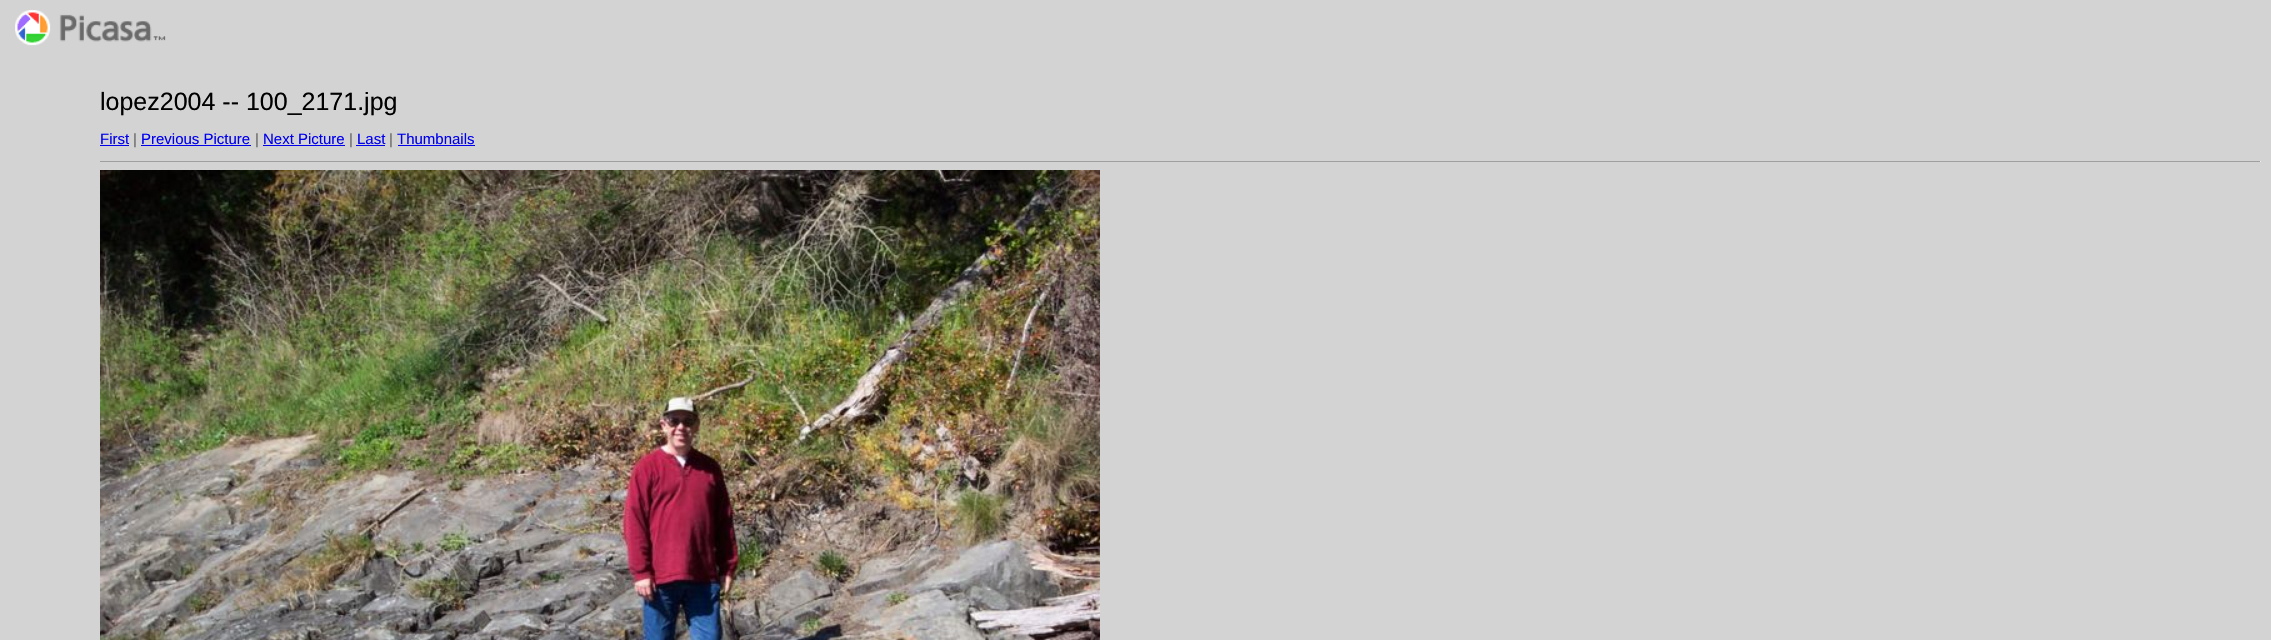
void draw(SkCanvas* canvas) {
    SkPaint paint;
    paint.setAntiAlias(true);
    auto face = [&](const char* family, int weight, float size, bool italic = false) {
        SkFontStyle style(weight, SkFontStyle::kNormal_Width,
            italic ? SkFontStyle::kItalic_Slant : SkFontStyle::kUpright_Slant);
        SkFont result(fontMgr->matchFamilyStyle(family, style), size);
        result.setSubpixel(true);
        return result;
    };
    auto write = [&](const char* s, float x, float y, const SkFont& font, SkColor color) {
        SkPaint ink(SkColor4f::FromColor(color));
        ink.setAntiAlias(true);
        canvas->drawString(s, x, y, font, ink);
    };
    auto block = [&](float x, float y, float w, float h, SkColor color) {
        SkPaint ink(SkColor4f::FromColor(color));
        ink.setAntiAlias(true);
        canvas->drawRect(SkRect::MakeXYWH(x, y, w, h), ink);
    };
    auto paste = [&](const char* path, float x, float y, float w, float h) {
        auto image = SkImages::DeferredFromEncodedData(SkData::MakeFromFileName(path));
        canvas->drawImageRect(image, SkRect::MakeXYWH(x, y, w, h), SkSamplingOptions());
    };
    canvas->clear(SkColorSetRGB(211, 211, 211));
    paste("pic1.png", 15, 10, 151, 36);
    auto kFont1 = face("Liberation Sans", 400, 25);
    write("lopez2004 -- 100_2171.jpg", 100, 110, kFont1, SK_ColorBLACK);
    auto kFont2 = face("Liberation Sans", 400, 15);
    write("First", 100, 144, kFont2, SkColorSetRGB(0, 0, 238));
    block(100, 145, 29, 1, SkColorSetRGB(0, 0, 238));
    write("|", 133, 144, kFont2, SkColorSetRGB(102, 102, 102));
    write("Previous Picture", 141, 144, kFont2, SkColorSetRGB(0, 0, 238));
    block(141, 145, 110, 1, SkColorSetRGB(0, 0, 238));
    write("|", 255, 144, kFont2, SkColorSetRGB(102, 102, 102));
    write("Next Picture", 263, 144, kFont2, SkColorSetRGB(0, 0, 238));
    block(263, 145, 82, 1, SkColorSetRGB(0, 0, 238));
    write("|", 349, 144, kFont2, SkColorSetRGB(102, 102, 102));
    write("Last", 357, 144, kFont2, SkColorSetRGB(0, 0, 238));
    block(356, 145, 29, 1, SkColorSetRGB(0, 0, 238));
    write("|", 389, 144, kFont2, SkColorSetRGB(102, 102, 102));
    write("Thumbnails", 397, 144, kFont2, SkColorSetRGB(0, 0, 238));
    block(398, 145, 77, 1, SkColorSetRGB(0, 0, 238));
    block(100, 161, 2161, 1, SkColorSetRGB(159, 159, 159));
    block(2260, 161, 1, 1, SkColorSetRGB(238, 238, 238));
    paste("pic2.png", 100, 170, 1000, 470);
}
